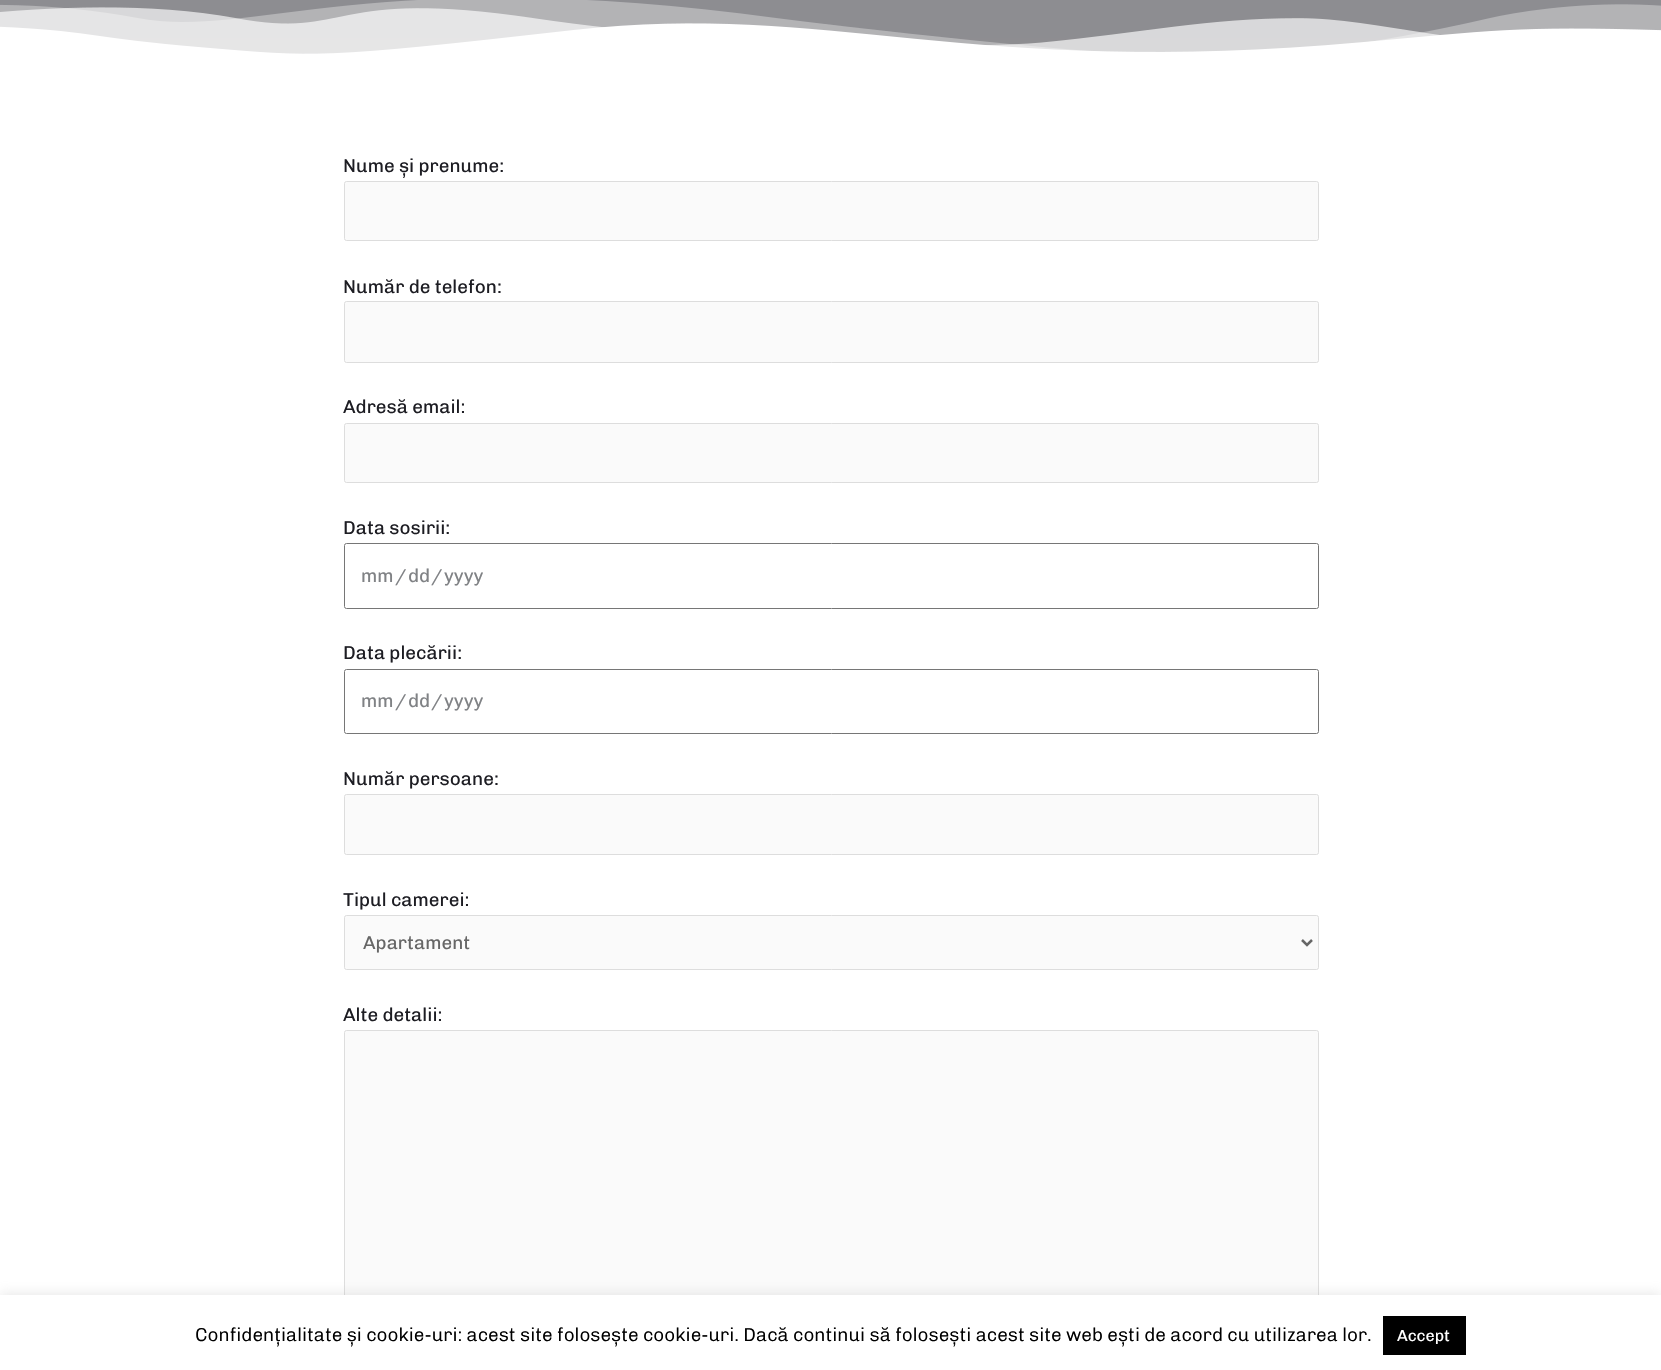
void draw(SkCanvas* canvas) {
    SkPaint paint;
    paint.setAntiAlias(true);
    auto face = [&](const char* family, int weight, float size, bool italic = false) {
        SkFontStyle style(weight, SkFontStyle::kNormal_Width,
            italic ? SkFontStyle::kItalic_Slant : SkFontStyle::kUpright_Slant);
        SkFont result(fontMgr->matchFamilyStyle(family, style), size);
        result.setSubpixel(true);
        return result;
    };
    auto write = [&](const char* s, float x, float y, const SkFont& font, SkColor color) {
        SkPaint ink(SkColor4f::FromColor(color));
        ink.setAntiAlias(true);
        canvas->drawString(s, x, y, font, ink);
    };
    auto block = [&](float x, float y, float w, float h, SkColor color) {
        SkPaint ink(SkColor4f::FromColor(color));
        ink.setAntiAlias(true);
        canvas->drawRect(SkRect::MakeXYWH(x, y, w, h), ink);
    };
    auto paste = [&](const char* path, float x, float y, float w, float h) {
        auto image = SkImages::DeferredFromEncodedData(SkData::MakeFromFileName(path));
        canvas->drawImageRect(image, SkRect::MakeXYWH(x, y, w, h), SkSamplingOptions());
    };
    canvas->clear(SK_ColorWHITE);
    {
        const SkColor colors[] = {SkColorSetRGB(129, 128, 147), SkColorSetRGB(142, 142, 145)};
        const float stops[] = {0, 1};
        const SkPoint ends[] = {{831, -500}, {831, 60}};
        paint.setShader(SkGradientShader::MakeLinear(ends, colors, stops, 2, SkTileMode::kClamp));
        paint.setAlpha(255);
    }
    canvas->drawRect(SkRect::MakeXYWH(0, 0, 1661, 54), paint);
    paste("pic1.png", 0, 0, 1661, 60);
    auto kFont1 = face("Chivo", 400, 18.75f);
    write("Nume și prenume:", 343, 172, kFont1, SkColorSetRGB(29, 29, 35));
    paint.setShader(nullptr);
    paint.setColor(SkColorSetRGB(250, 250, 250));
    canvas->drawRoundRect(SkRect::MakeXYWH(344.5f, 181.5f, 974, 59), 2, 2, paint);
    paint.setStyle(SkPaint::kStroke_Style);
    paint.setStrokeWidth(1);
    paint.setColor(SkColorSetRGB(221, 221, 221));
    canvas->drawRoundRect(SkRect::MakeXYWH(344.5f, 181.5f, 974, 59), 2, 2, paint);
    write("Număr de telefon:", 343, 293, kFont1, SkColorSetRGB(29, 29, 35));
    paint.setStyle(SkPaint::kFill_Style);
    paint.setColor(SkColorSetRGB(250, 250, 250));
    canvas->drawRoundRect(SkRect::MakeXYWH(344.5f, 301.5f, 974, 61), 2, 2, paint);
    paint.setStyle(SkPaint::kStroke_Style);
    paint.setColor(SkColorSetRGB(221, 221, 221));
    canvas->drawRoundRect(SkRect::MakeXYWH(344.5f, 301.5f, 974, 61), 2, 2, paint);
    write("Adresă email:", 343, 413, kFont1, SkColorSetRGB(29, 29, 35));
    paint.setStyle(SkPaint::kFill_Style);
    paint.setColor(SkColorSetRGB(250, 250, 250));
    canvas->drawRoundRect(SkRect::MakeXYWH(344.5f, 423.5f, 974, 59), 2, 2, paint);
    paint.setStyle(SkPaint::kStroke_Style);
    paint.setColor(SkColorSetRGB(221, 221, 221));
    canvas->drawRoundRect(SkRect::MakeXYWH(344.5f, 423.5f, 974, 59), 2, 2, paint);
    write("Data sosirii:", 343, 534, kFont1, SkColorSetRGB(29, 29, 35));
    paint.setColor(SkColorSetRGB(118, 118, 118));
    canvas->drawRoundRect(SkRect::MakeXYWH(344.5f, 543.5f, 974, 65), 2, 2, paint);
    write("mm", 361, 582, kFont1, SkColorSetRGB(128, 130, 133));
    write("/", 395, 582, kFont1, SkColorSetRGB(128, 130, 133));
    write("dd", 408, 582, kFont1, SkColorSetRGB(128, 130, 133));
    write("/", 431, 582, kFont1, SkColorSetRGB(128, 130, 133));
    write("yyyy", 444, 582, kFont1, SkColorSetRGB(128, 130, 133));
    write("Data plecării:", 343, 659, kFont1, SkColorSetRGB(29, 29, 35));
    canvas->drawRoundRect(SkRect::MakeXYWH(344.5f, 669.5f, 974, 64), 2, 2, paint);
    write("mm", 361, 707, kFont1, SkColorSetRGB(128, 130, 133));
    write("/", 395, 707, kFont1, SkColorSetRGB(128, 130, 133));
    write("dd", 408, 707, kFont1, SkColorSetRGB(128, 130, 133));
    write("/", 431, 707, kFont1, SkColorSetRGB(128, 130, 133));
    write("yyyy", 444, 707, kFont1, SkColorSetRGB(128, 130, 133));
    write("Număr persoane:", 343, 785, kFont1, SkColorSetRGB(29, 29, 35));
    paint.setStyle(SkPaint::kFill_Style);
    paint.setColor(SkColorSetRGB(250, 250, 250));
    canvas->drawRoundRect(SkRect::MakeXYWH(344.5f, 794.5f, 974, 60), 2, 2, paint);
    paint.setStyle(SkPaint::kStroke_Style);
    paint.setColor(SkColorSetRGB(221, 221, 221));
    canvas->drawRoundRect(SkRect::MakeXYWH(344.5f, 794.5f, 974, 60), 2, 2, paint);
    write("Tipul camerei:", 343, 906, kFont1, SkColorSetRGB(29, 29, 35));
    paint.setStyle(SkPaint::kFill_Style);
    paint.setColor(SkColorSetRGB(250, 250, 250));
    canvas->drawRoundRect(SkRect::MakeXYWH(344.5f, 915.5f, 974, 54), 2, 2, paint);
    paint.setStyle(SkPaint::kStroke_Style);
    paint.setColor(SkColorSetRGB(221, 221, 221));
    canvas->drawRoundRect(SkRect::MakeXYWH(344.5f, 915.5f, 974, 54), 2, 2, paint);
    paint.setStrokeWidth(2.5f);
    paint.setColor(SkColorSetRGB(102, 102, 102));
    canvas->drawPath(SkPathBuilder().moveTo(1302, 940).lineTo(1307, 945).lineTo(1312, 940).detach(), paint);
    write("Apartament", 363, 949, kFont1, SkColorSetRGB(102, 102, 102));
    write("Alte detalii:", 343, 1021, kFont1, SkColorSetRGB(29, 29, 35));
    paint.setStyle(SkPaint::kFill_Style);
    paint.setColor(SkColorSetRGB(250, 250, 250));
    canvas->drawRoundRect(SkRect::MakeXYWH(344.5f, 1030.5f, 974, 330), 2, 2, paint);
    paint.setStyle(SkPaint::kStroke_Style);
    paint.setStrokeWidth(1);
    paint.setColor(SkColorSetRGB(221, 221, 221));
    canvas->drawRoundRect(SkRect::MakeXYWH(344.5f, 1030.5f, 974, 330), 2, 2, paint);
    paint.setStyle(SkPaint::kFill_Style);
    paint.setColor(SkColorSetARGB(77, 172, 171, 171));
    paint.setMaskFilter(SkMaskFilter::MakeBlur(kNormal_SkBlurStyle, 6));
    canvas->drawRect(SkRect::MakeXYWH(0, 1294, 1661, 75), paint);
    paint.setMaskFilter(nullptr);
    block(0, 1295, 1661, 75, SK_ColorWHITE);
    auto kFont2 = face("Chivo", 300, 18.75f);
    write("Confidențialitate și cookie-uri: acest site folosește cookie-uri. Dacă continui să folosești acest site web ești de acord cu utilizarea lor.", 195, 1341, kFont2, SK_ColorBLACK);
    block(1383, 1316, 83, 39, SK_ColorBLACK);
    auto kFont3 = face("Chivo", 400, 16);
    write("Accept", 1397, 1341, kFont3, SK_ColorWHITE);
}
